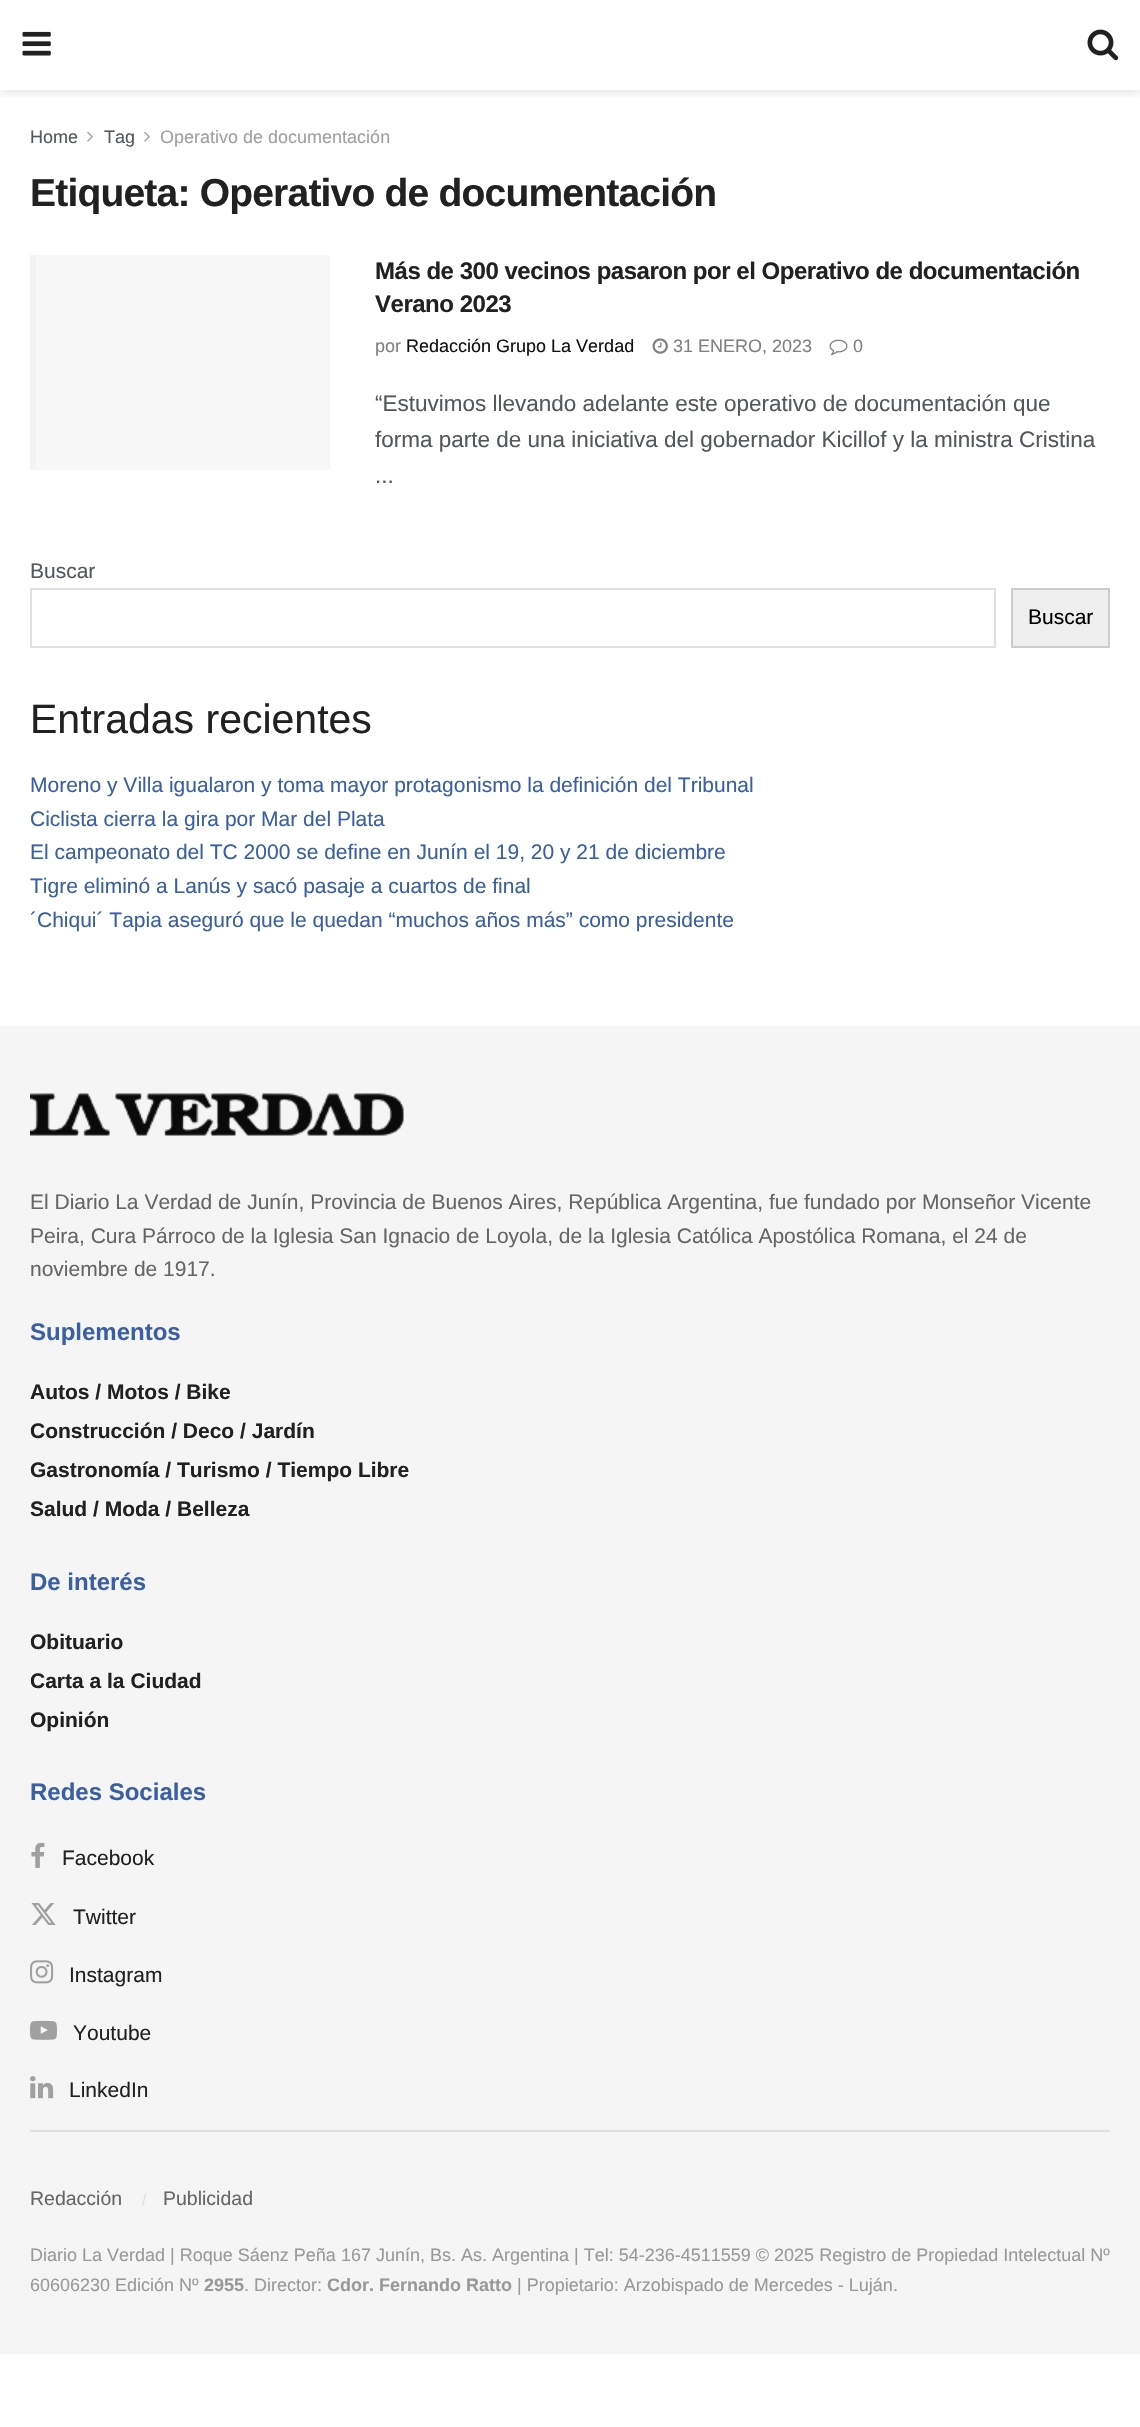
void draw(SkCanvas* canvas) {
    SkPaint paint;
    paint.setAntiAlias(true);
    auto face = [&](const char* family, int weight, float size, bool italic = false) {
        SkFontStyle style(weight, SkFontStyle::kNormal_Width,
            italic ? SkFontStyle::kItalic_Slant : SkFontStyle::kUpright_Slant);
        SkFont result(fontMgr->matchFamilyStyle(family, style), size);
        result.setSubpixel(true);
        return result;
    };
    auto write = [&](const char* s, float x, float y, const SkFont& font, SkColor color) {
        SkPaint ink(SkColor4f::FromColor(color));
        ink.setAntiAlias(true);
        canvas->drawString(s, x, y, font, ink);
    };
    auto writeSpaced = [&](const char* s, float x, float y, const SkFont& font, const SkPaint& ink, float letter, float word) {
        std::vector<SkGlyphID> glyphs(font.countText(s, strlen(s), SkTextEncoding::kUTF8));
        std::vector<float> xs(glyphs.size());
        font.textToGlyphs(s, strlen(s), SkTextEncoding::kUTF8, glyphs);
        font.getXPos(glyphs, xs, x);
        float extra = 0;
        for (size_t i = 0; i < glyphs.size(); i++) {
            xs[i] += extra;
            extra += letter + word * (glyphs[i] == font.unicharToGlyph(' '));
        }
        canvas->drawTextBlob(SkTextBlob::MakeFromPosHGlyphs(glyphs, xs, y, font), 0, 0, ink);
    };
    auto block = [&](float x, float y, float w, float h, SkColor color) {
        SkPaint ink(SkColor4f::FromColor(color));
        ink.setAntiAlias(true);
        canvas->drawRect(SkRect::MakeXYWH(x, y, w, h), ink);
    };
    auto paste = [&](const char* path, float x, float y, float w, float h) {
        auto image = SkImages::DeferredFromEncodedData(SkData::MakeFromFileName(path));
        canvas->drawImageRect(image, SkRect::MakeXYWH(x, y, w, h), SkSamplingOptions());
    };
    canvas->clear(SK_ColorWHITE);
    canvas->save();
    canvas->clipRect(SkRect::MakeXYWH(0, 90, 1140, 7));
    paint.setColor(SkColorSetARGB(26, 0, 0, 0));
    paint.setMaskFilter(SkMaskFilter::MakeBlur(kNormal_SkBlurStyle, 4.5f));
    canvas->drawRect(SkRect::MakeXYWH(0, 3, 1140, 90), paint);
    paint.setMaskFilter(nullptr);
    canvas->restore();
    paste("pic1.png", 22, 31, 29, 25);
    paste("pic2.png", 1087, 29, 32, 32);
    auto kFont1 = face("Liberation Sans", 400, 18);
    write("Home", 30, 143, kFont1, SkColorSetRGB(83, 88, 92));
    paste("pic3.png", 87, 131, 6, 11);
    write("Tag", 104, 143, kFont1, SkColorSetRGB(83, 88, 92));
    paste("pic3.png", 144, 131, 6, 11);
    write("Operativo de documentación", 160, 143, kFont1, SkColorSetRGB(160, 160, 160));
    auto kFont2 = face("Liberation Sans", 700, 39);
    paint.setColor(SkColorSetRGB(33, 33, 33));
    writeSpaced("Etiqueta: Operativo de documentación", 30, 206, kFont2, paint, -0.8f, 0);
    block(30, 255, 300, 215, SkColorSetRGB(247, 247, 247));
    block(30, 255, 6, 214, SkColorSetRGB(242, 242, 242));
    auto kFont3 = face("Liberation Sans", 700, 24);
    writeSpaced("Más de 300 vecinos pasaron por el Operativo de documentación", 375, 279, kFont3, paint, -0.48f, 0);
    writeSpaced("Verano 2023", 375, 312, kFont3, paint, -0.48f, 0);
    write("por", 375, 352, kFont1, SkColorSetRGB(128, 128, 128));
    write("Redacción Grupo La Verdad", 406, 352, kFont1, SkColorSetRGB(17, 17, 17));
    paste("pic4.png", 652, 338, 16, 16);
    write("31 ENERO, 2023", 673, 352, kFont1, SkColorSetRGB(128, 128, 128));
    paste("pic5.png", 829, 339, 19, 16);
    write("0", 853, 352, kFont1, SkColorSetRGB(128, 128, 128));
    auto kFont4 = face("Liberation Sans", 400, 22.5f);
    write("“Estuvimos llevando adelante este operativo de documentación que", 375, 411, kFont4, SkColorSetRGB(83, 88, 92));
    write("forma parte de una iniciativa del gobernador Kicillof y la ministra Cristina", 375, 447, kFont4, SkColorSetRGB(83, 88, 92));
    write("...", 375, 483, kFont4, SkColorSetRGB(83, 88, 92));
    auto kFont5 = face("Liberation Sans", 400, 21);
    write("Buscar", 30, 578, kFont5, SkColorSetRGB(83, 88, 92));
    paint.setStyle(SkPaint::kStroke_Style);
    paint.setStrokeWidth(2);
    paint.setColor(SkColorSetRGB(224, 224, 224));
    canvas->drawRect(SkRect::MakeXYWH(31, 589, 964, 58), paint);
    paint.setStyle(SkPaint::kFill_Style);
    paint.setColor(SkColorSetRGB(239, 239, 239));
    canvas->drawRect(SkRect::MakeXYWH(1012, 589, 97, 58), paint);
    paint.setStyle(SkPaint::kStroke_Style);
    paint.setColor(SkColorSetRGB(204, 204, 204));
    canvas->drawRect(SkRect::MakeXYWH(1012, 589, 97, 58), paint);
    write("Buscar", 1028, 624, kFont5, SK_ColorBLACK);
    auto kFont6 = face("Liberation Sans", 400, 41);
    write("Entradas recientes", 30, 733, kFont6, SkColorSetRGB(33, 33, 33));
    write("Moreno y Villa igualaron y toma mayor protagonismo la definición del Tribunal", 30, 792, kFont5, SkColorSetRGB(58, 95, 163));
    write("Ciclista cierra la gira por Mar del Plata", 30, 826, kFont5, SkColorSetRGB(58, 95, 163));
    write("El campeonato del TC 2000 se define en Junín el 19, 20 y 21 de diciembre", 30, 859, kFont5, SkColorSetRGB(58, 95, 163));
    write("Tigre eliminó a Lanús y sacó pasaje a cuartos de final", 30, 893, kFont5, SkColorSetRGB(58, 95, 163));
    write("´Chiqui´ Tapia aseguró que le quedan “muchos años más” como presidente", 30, 927, kFont5, SkColorSetRGB(58, 95, 163));
    block(0, 1026, 1140, 1328, SkColorSetRGB(245, 245, 245));
    paste("pic6.png", 30, 1093, 374, 43);
    write("El Diario La Verdad de Junín, Provincia de Buenos Aires, República Argentina, fue fundado por Monseñor Vicente", 30, 1209, kFont5, SkColorSetRGB(102, 102, 102));
    write("Peira, Cura Párroco de la Iglesia San Ignacio de Loyola, de la Iglesia Católica Apostólica Romana, el 24 de", 30, 1243, kFont5, SkColorSetRGB(102, 102, 102));
    write("noviembre de 1917.", 30, 1276, kFont5, SkColorSetRGB(102, 102, 102));
    write("Suplementos", 30, 1340, kFont3, SkColorSetRGB(58, 95, 163));
    auto kFont7 = face("Liberation Sans", 700, 21);
    write("Autos / Motos / Bike", 30, 1399, kFont7, SkColorSetRGB(33, 33, 33));
    write("Construcción / Deco / Jardín", 30, 1438, kFont7, SkColorSetRGB(33, 33, 33));
    write("Gastronomía / Turismo / Tiempo Libre", 30, 1477, kFont7, SkColorSetRGB(33, 33, 33));
    write("Salud / Moda / Belleza", 30, 1516, kFont7, SkColorSetRGB(33, 33, 33));
    write("De interés", 30, 1590, kFont3, SkColorSetRGB(58, 95, 163));
    write("Obituario", 30, 1649, kFont7, SkColorSetRGB(33, 33, 33));
    write("Carta a la Ciudad", 30, 1688, kFont7, SkColorSetRGB(33, 33, 33));
    write("Opinión", 30, 1727, kFont7, SkColorSetRGB(33, 33, 33));
    write("Redes Sociales", 30, 1800, kFont3, SkColorSetRGB(58, 95, 163));
    paste("pic7.png", 31, 1842, 14, 26);
    write("Facebook", 62, 1865, kFont5, SkColorSetRGB(33, 33, 33));
    paste("pic8.png", 31, 1903, 25, 22);
    write("Twitter", 73, 1924, kFont5, SkColorSetRGB(33, 33, 33));
    paste("pic9.png", 30, 1960, 24, 24);
    write("Instagram", 69, 1982, kFont5, SkColorSetRGB(33, 33, 33));
    paste("pic10.png", 30, 2020, 27, 20);
    write("Youtube", 73, 2040, kFont5, SkColorSetRGB(33, 33, 33));
    paste("pic11.png", 30, 2076, 24, 23);
    write("LinkedIn", 69, 2097, kFont5, SkColorSetRGB(33, 33, 33));
    block(30, 2130, 1080, 2, SkColorSetRGB(224, 224, 224));
    auto kFont8 = face("Liberation Sans", 400, 19.5f);
    write("Redacción", 30, 2205, kFont8, SkColorSetRGB(102, 102, 102));
    auto kFont9 = face("Liberation Sans", 400, 16);
    write("/", 142, 2205, kFont9, SkColorSetRGB(224, 224, 224));
    write("Publicidad", 163, 2205, kFont8, SkColorSetRGB(102, 102, 102));
    write("Diario La Verdad | Roque Sáenz Peña 167 Junín, Bs. As. Argentina | Tel: 54-236-4511559 © 2025 Registro de Propiedad Intelectual Nº", 30, 2261, kFont1, SkColorSetRGB(153, 153, 153));
    write("60606230 Edición Nº", 30, 2291, kFont1, SkColorSetRGB(153, 153, 153));
    auto kFont10 = face("Liberation Sans", 700, 18);
    write("2955", 204, 2291, kFont10, SkColorSetRGB(153, 153, 153));
    write(". Director:", 244, 2291, kFont1, SkColorSetRGB(153, 153, 153));
    write("Cdor. Fernando Ratto", 327, 2291, kFont10, SkColorSetRGB(153, 153, 153));
    write("| Propietario: Arzobispado de Mercedes - Luján.", 517, 2291, kFont1, SkColorSetRGB(153, 153, 153));
}
